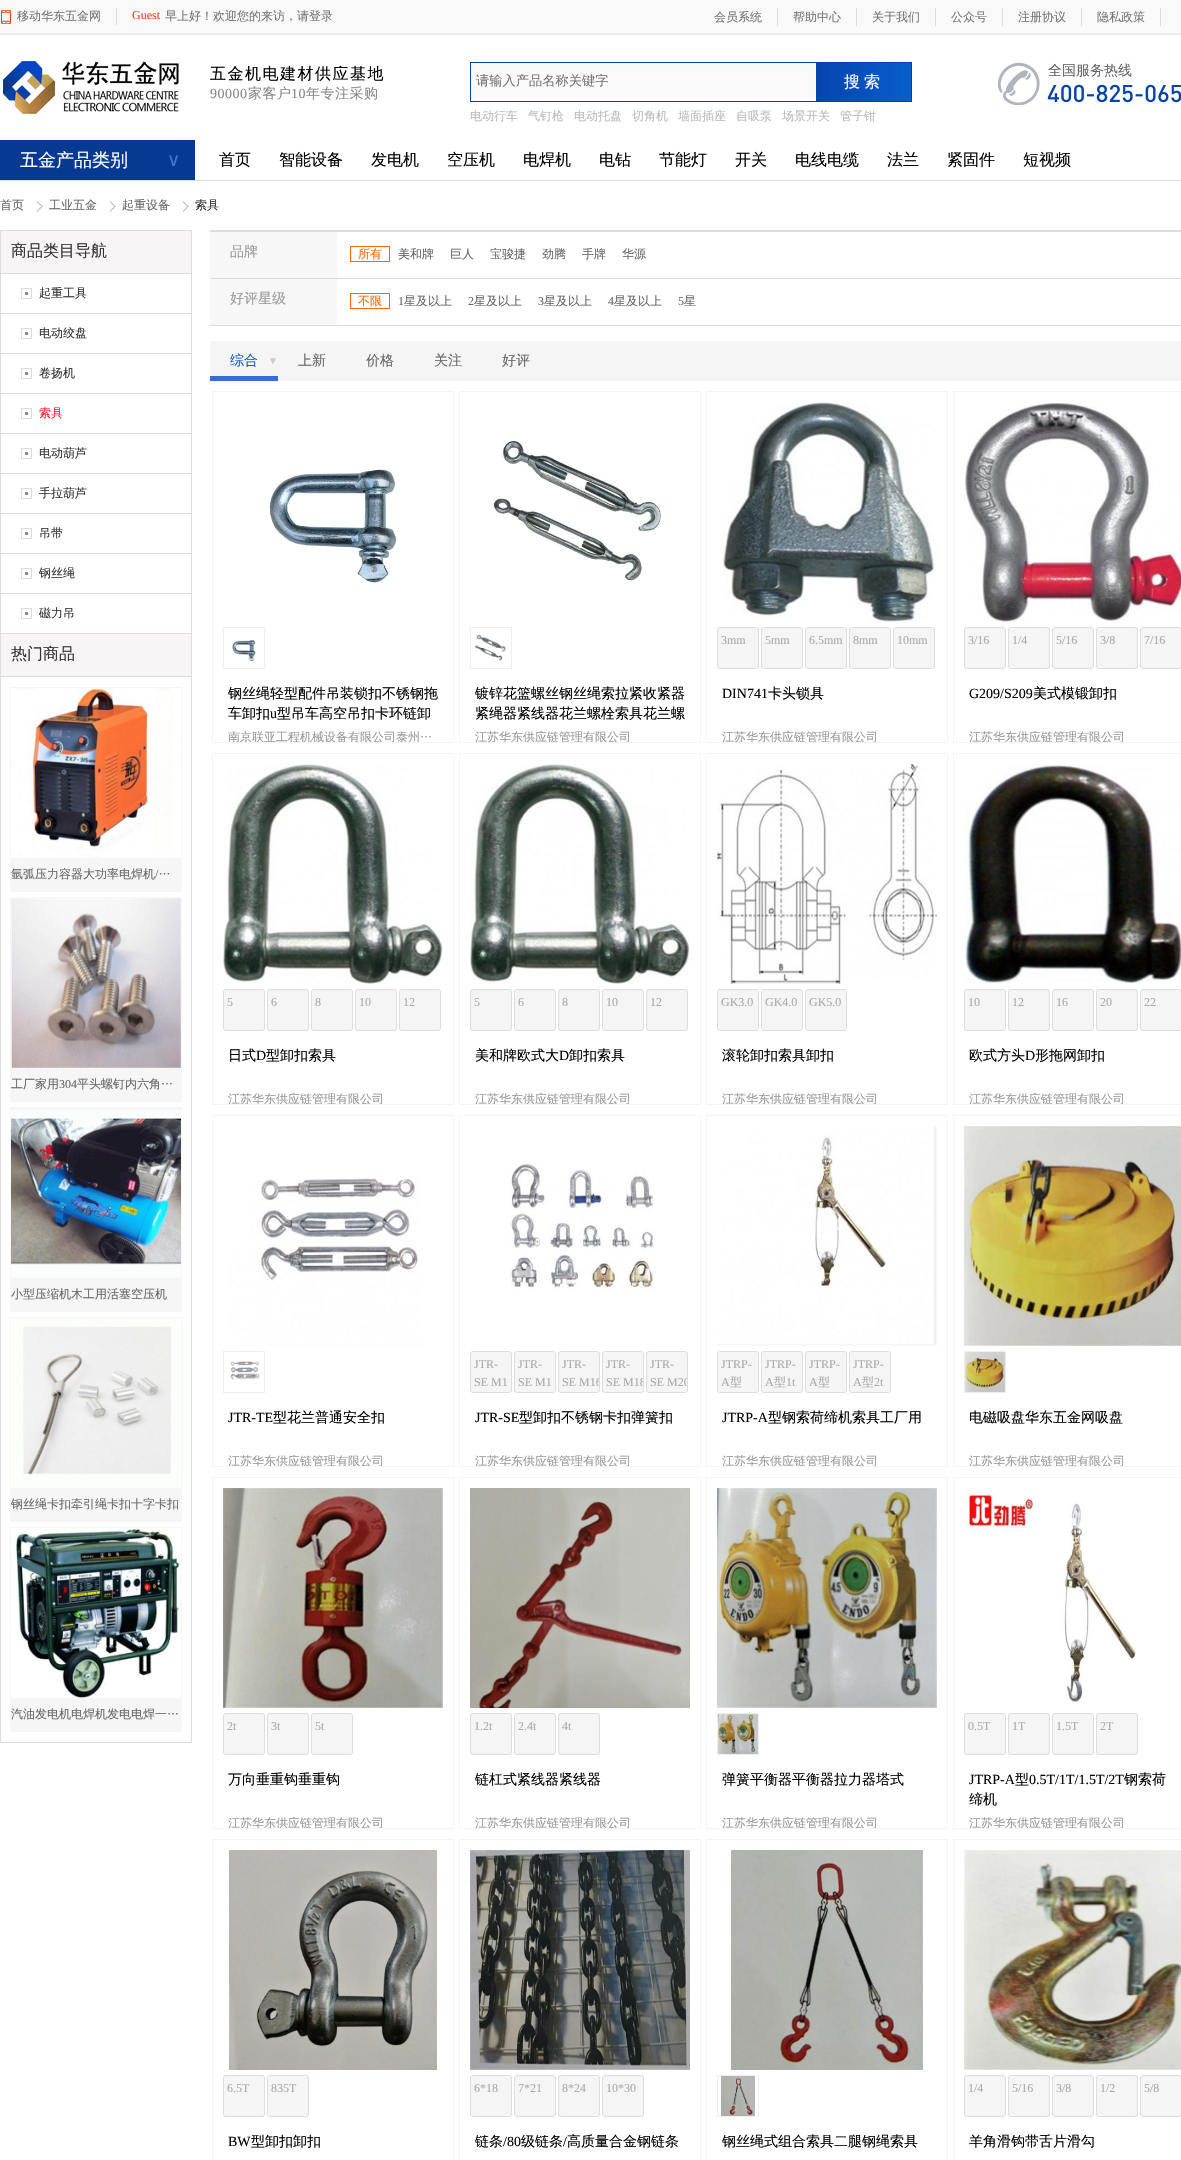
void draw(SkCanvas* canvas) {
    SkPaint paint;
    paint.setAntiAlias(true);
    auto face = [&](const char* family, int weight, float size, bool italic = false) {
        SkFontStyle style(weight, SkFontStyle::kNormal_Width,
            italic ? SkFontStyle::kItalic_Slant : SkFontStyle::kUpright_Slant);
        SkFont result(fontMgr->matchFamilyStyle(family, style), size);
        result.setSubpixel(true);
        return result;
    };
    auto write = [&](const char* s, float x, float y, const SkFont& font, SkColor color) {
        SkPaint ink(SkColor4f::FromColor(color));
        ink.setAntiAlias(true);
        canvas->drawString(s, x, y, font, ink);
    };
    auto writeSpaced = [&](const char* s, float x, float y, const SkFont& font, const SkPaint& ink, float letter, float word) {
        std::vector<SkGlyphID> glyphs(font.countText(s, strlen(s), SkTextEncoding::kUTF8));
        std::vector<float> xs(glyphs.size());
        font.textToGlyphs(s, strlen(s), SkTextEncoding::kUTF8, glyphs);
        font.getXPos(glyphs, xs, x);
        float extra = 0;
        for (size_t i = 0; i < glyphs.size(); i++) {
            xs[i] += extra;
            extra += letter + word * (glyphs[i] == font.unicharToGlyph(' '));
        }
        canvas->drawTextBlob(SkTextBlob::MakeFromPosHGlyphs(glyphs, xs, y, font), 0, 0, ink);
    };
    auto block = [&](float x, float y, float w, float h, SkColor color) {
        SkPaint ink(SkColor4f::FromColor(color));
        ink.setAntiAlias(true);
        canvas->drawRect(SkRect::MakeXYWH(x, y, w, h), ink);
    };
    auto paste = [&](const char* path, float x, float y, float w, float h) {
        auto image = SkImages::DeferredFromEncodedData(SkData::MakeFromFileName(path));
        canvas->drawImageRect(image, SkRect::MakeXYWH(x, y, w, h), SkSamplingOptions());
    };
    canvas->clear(SK_ColorWHITE);
    block(0, 0, 1181, 33, SkColorSetRGB(249, 249, 249));
    block(0, 33, 1181, 2, SkColorSetRGB(238, 238, 238));
    paste("pic1.png", 1, 10, 10, 14);
    block(116, 8, 1, 17, SkColorSetRGB(221, 221, 221));
    auto kFont1 = face("WenQuanYi Zen Hei", 500, 12);
    write("移动华东五金网", 17, 20, kFont1, SkColorSetRGB(117, 117, 117));
    auto kFont2 = face("Liberation Serif", 400, 12);
    write("Guest", 132, 19, kFont2, SkColorSetRGB(233, 69, 32));
    write("早上好！欢迎您的来访，请登录", 165, 20, kFont1, SkColorSetRGB(117, 117, 117));
    block(777, 8, 1, 18, SkColorSetRGB(221, 221, 221));
    write("会员系统", 714, 21, kFont1, SkColorSetRGB(117, 117, 117));
    block(856, 8, 1, 18, SkColorSetRGB(221, 221, 221));
    write("帮助中心", 793, 21, kFont1, SkColorSetRGB(117, 117, 117));
    block(935, 8, 1, 18, SkColorSetRGB(221, 221, 221));
    write("关于我们", 872, 21, kFont1, SkColorSetRGB(117, 117, 117));
    block(1002, 8, 1, 18, SkColorSetRGB(221, 221, 221));
    write("公众号", 951, 21, kFont1, SkColorSetRGB(117, 117, 117));
    block(1081, 8, 1, 18, SkColorSetRGB(221, 221, 221));
    write("注册协议", 1018, 21, kFont1, SkColorSetRGB(117, 117, 117));
    block(1160, 8, 1, 18, SkColorSetRGB(221, 221, 221));
    write("隐私政策", 1097, 21, kFont1, SkColorSetRGB(117, 117, 117));
    block(0, 180, 1181, 1, SkColorSetRGB(221, 221, 221));
    paste("pic2.png", 3, 61, 176, 53);
    auto kFont3 = face("WenQuanYi Zen Hei", 500, 16);
    paint.setColor(SK_ColorBLACK);
    writeSpaced("五金机电建材供应基地", 210, 79, kFont3, paint, 1.5f, 0);
    auto kFont4 = face("Liberation Serif", 400, 14);
    paint.setColor(SkColorSetRGB(136, 136, 136));
    writeSpaced("90000", 210, 98, kFont4, paint, 0.5f, 0);
    auto kFont5 = face("WenQuanYi Zen Hei", 500, 14);
    writeSpaced("家客户", 248, 98, kFont5, paint, 0.5f, 0);
    writeSpaced("10", 291, 98, kFont4, paint, 0.5f, 0);
    writeSpaced("年专注采购", 306, 98, kFont5, paint, 0.5f, 0);
    paint.setStyle(SkPaint::kStroke_Style);
    paint.setStrokeWidth(1);
    paint.setColor(SkColorSetRGB(5, 67, 172));
    canvas->drawRect(SkRect::MakeXYWH(470.5f, 62.5f, 441, 39), paint);
    block(471, 63, 345, 36, SkColorSetRGB(250, 250, 250));
    auto kFont6 = face("WenQuanYi Zen Hei", 500, 13.25f);
    write("请输入产品名称关键字", 476, 85, kFont6, SkColorSetRGB(117, 117, 117));
    paint.setStyle(SkPaint::kFill_Style);
    {
        const SkColor colors[] = {SkColorSetRGB(5, 68, 173), SkColorSetRGB(7, 94, 205)};
        const float stops[] = {0, 1};
        const SkPoint ends[] = {{816, 82}, {911, 82}};
        paint.setShader(SkGradientShader::MakeLinear(ends, colors, stops, 2, SkTileMode::kClamp));
        paint.setAlpha(255);
    }
    canvas->drawRect(SkRect::MakeXYWH(816, 63, 95, 38), paint);
    paint.setShader(nullptr);
    paint.setColor(SK_ColorWHITE);
    writeSpaced("搜索", 844, 87, kFont3, paint, 4, 0);
    write("电动行车", 470, 120, kFont1, SkColorSetRGB(187, 187, 187));
    write("气钉枪", 528, 120, kFont1, SkColorSetRGB(187, 187, 187));
    write("电动托盘", 574, 120, kFont1, SkColorSetRGB(187, 187, 187));
    write("切角机", 632, 120, kFont1, SkColorSetRGB(187, 187, 187));
    write("墙面插座", 678, 120, kFont1, SkColorSetRGB(187, 187, 187));
    write("自吸泵", 736, 120, kFont1, SkColorSetRGB(187, 187, 187));
    write("场景开关", 782, 120, kFont1, SkColorSetRGB(187, 187, 187));
    write("管子钳", 840, 120, kFont1, SkColorSetRGB(187, 187, 187));
    paste("pic3.png", 997, 62, 43, 43);
    write("全国服务热线", 1048, 75, kFont5, SkColorSetRGB(102, 102, 102));
    paste("pic4.png", 1047, 84, 134, 19);
    block(0, 140, 195, 40, SkColorSetRGB(6, 58, 146));
    auto kFont7 = face("WenQuanYi Zen Hei", 500, 18);
    write("五金产品类别", 20, 166, kFont7, SK_ColorWHITE);
    auto kFont8 = face("DejaVu Sans", 400, 18);
    write("∨", 167, 166, kFont8, SkColorSetRGB(65, 118, 208));
    write("首页", 219, 165, kFont3, SK_ColorBLACK);
    write("智能设备", 279, 165, kFont3, SK_ColorBLACK);
    write("发电机", 371, 165, kFont3, SK_ColorBLACK);
    write("空压机", 447, 165, kFont3, SK_ColorBLACK);
    write("电焊机", 523, 165, kFont3, SK_ColorBLACK);
    write("电钻", 599, 165, kFont3, SK_ColorBLACK);
    write("节能灯", 659, 165, kFont3, SK_ColorBLACK);
    write("开关", 735, 165, kFont3, SK_ColorBLACK);
    write("电线电缆", 795, 165, kFont3, SK_ColorBLACK);
    write("法兰", 887, 165, kFont3, SK_ColorBLACK);
    write("紧固件", 947, 165, kFont3, SK_ColorBLACK);
    write("短视频", 1023, 165, kFont3, SK_ColorBLACK);
    write("首页", 0, 209, kFont1, SkColorSetRGB(102, 102, 102));
    paste("pic5.png", 37, 201, 6, 11);
    write("工业五金", 49, 209, kFont1, SkColorSetRGB(102, 102, 102));
    paste("pic5.png", 110, 201, 6, 11);
    write("起重设备", 122, 209, kFont1, SkColorSetRGB(102, 102, 102));
    paste("pic5.png", 183, 201, 6, 11);
    write("索具", 195, 209, kFont1, SkColorSetRGB(51, 51, 51));
    paint.setStyle(SkPaint::kStroke_Style);
    paint.setColor(SkColorSetRGB(221, 221, 221));
    canvas->drawRect(SkRect::MakeXYWH(0.5f, 230.5f, 191, 1512), paint);
    block(1, 231, 190, 42, SkColorSetRGB(247, 245, 246));
    write("商品类目导航", 11, 256, kFont3, SkColorSetRGB(51, 51, 51));
    block(1, 273, 190, 1, SkColorSetRGB(221, 221, 221));
    block(1, 313, 190, 1, SkColorSetRGB(221, 221, 221));
    paste("pic6.png", 21, 288, 11, 11);
    write("起重工具", 39, 297, kFont1, SkColorSetRGB(51, 51, 51));
    block(1, 353, 190, 1, SkColorSetRGB(221, 221, 221));
    paste("pic6.png", 21, 328, 11, 11);
    write("电动绞盘", 39, 337, kFont1, SkColorSetRGB(51, 51, 51));
    block(1, 393, 190, 1, SkColorSetRGB(221, 221, 221));
    paste("pic6.png", 21, 368, 11, 11);
    write("卷扬机", 39, 377, kFont1, SkColorSetRGB(51, 51, 51));
    block(1, 433, 190, 1, SkColorSetRGB(221, 221, 221));
    paste("pic6.png", 21, 408, 11, 11);
    write("索具", 39, 417, kFont1, SkColorSetRGB(255, 34, 34));
    block(1, 473, 190, 1, SkColorSetRGB(221, 221, 221));
    paste("pic6.png", 21, 448, 11, 11);
    write("电动葫芦", 39, 457, kFont1, SkColorSetRGB(51, 51, 51));
    block(1, 513, 190, 1, SkColorSetRGB(221, 221, 221));
    paste("pic6.png", 21, 488, 11, 11);
    write("手拉葫芦", 39, 497, kFont1, SkColorSetRGB(51, 51, 51));
    block(1, 553, 190, 1, SkColorSetRGB(221, 221, 221));
    paste("pic6.png", 21, 528, 11, 11);
    write("吊带", 39, 537, kFont1, SkColorSetRGB(51, 51, 51));
    block(1, 593, 190, 1, SkColorSetRGB(221, 221, 221));
    paste("pic6.png", 21, 568, 11, 11);
    write("钢丝绳", 39, 577, kFont1, SkColorSetRGB(51, 51, 51));
    block(1, 633, 190, 1, SkColorSetRGB(221, 221, 221));
    paste("pic6.png", 21, 608, 11, 11);
    write("磁力吊", 39, 617, kFont1, SkColorSetRGB(51, 51, 51));
    block(1, 634, 190, 42, SkColorSetRGB(247, 245, 246));
    write("热门商品", 11, 659, kFont3, SkColorSetRGB(51, 51, 51));
    block(1, 676, 190, 1, SkColorSetRGB(221, 221, 221));
    block(10, 687, 172, 205, SkColorSetRGB(246, 246, 246));
    paste("pic7.png", 11, 688, 170, 170);
    write("氩弧压力容器大功率电焊机 …", 11, 878, kFont1, SkColorSetRGB(102, 102, 102));
    write("/", 155, 878, kFont2, SkColorSetRGB(102, 102, 102));
    block(10, 897, 172, 205, SkColorSetRGB(246, 246, 246));
    paste("pic8.png", 11, 898, 170, 170);
    write("工厂家用", 11, 1088, kFont1, SkColorSetRGB(102, 102, 102));
    write("304", 59, 1088, kFont2, SkColorSetRGB(102, 102, 102));
    write("平头螺钉内六角…", 77, 1088, kFont1, SkColorSetRGB(102, 102, 102));
    block(10, 1107, 172, 205, SkColorSetRGB(246, 246, 246));
    paste("pic9.png", 11, 1110, 170, 168);
    write("小型压缩机木工用活塞空压机", 11, 1298, kFont1, SkColorSetRGB(102, 102, 102));
    block(10, 1317, 172, 205, SkColorSetRGB(246, 246, 246));
    paste("pic10.png", 11, 1318, 170, 170);
    write("钢丝绳卡扣牵引绳卡扣十字卡扣", 11, 1508, kFont1, SkColorSetRGB(102, 102, 102));
    block(10, 1527, 172, 205, SkColorSetRGB(246, 246, 246));
    paste("pic11.png", 11, 1528, 170, 170);
    write("汽油发电机电焊机发电电焊一…", 11, 1718, kFont1, SkColorSetRGB(102, 102, 102));
    block(210, 230, 971, 2, SkColorSetRGB(221, 221, 221));
    block(210, 325, 971, 1, SkColorSetRGB(221, 221, 221));
    block(210, 232, 127, 46, SkColorSetRGB(247, 247, 247));
    write("品牌", 230, 256, kFont5, SkColorSetRGB(153, 153, 153));
    paint.setColor(SkColorSetRGB(255, 102, 0));
    canvas->drawRect(SkRect::MakeXYWH(350.5f, 246.5f, 39, 15), paint);
    write("所有", 358, 258, kFont1, SkColorSetRGB(255, 102, 0));
    write("美和牌", 398, 258, kFont1, SkColorSetRGB(102, 102, 102));
    write("巨人", 450, 258, kFont1, SkColorSetRGB(102, 102, 102));
    write("宝骏捷", 490, 258, kFont1, SkColorSetRGB(102, 102, 102));
    write("劲腾", 542, 258, kFont1, SkColorSetRGB(102, 102, 102));
    write("手牌", 582, 258, kFont1, SkColorSetRGB(102, 102, 102));
    write("华源", 622, 258, kFont1, SkColorSetRGB(102, 102, 102));
    block(210, 279, 127, 46, SkColorSetRGB(247, 247, 247));
    block(210, 278, 971, 1, SkColorSetRGB(221, 221, 221));
    write("好评星级", 230, 303, kFont5, SkColorSetRGB(153, 153, 153));
    canvas->drawRect(SkRect::MakeXYWH(350.5f, 293.5f, 39, 15), paint);
    write("不限", 358, 305, kFont1, SkColorSetRGB(255, 102, 0));
    write("1", 398, 305, kFont2, SkColorSetRGB(102, 102, 102));
    write("星及以上", 404, 305, kFont1, SkColorSetRGB(102, 102, 102));
    write("2", 468, 305, kFont2, SkColorSetRGB(102, 102, 102));
    write("星及以上", 474, 305, kFont1, SkColorSetRGB(102, 102, 102));
    write("3", 538, 305, kFont2, SkColorSetRGB(102, 102, 102));
    write("星及以上", 544, 305, kFont1, SkColorSetRGB(102, 102, 102));
    write("4", 608, 305, kFont2, SkColorSetRGB(102, 102, 102));
    write("星及以上", 614, 305, kFont1, SkColorSetRGB(102, 102, 102));
    write("5", 678, 305, kFont2, SkColorSetRGB(102, 102, 102));
    write("星", 684, 305, kFont1, SkColorSetRGB(102, 102, 102));
    block(210, 341, 971, 40, SkColorSetRGB(245, 245, 245));
    block(210, 376, 68, 5, SkColorSetRGB(56, 110, 210));
    write("综合", 230, 365, kFont5, SkColorSetRGB(7, 92, 203));
    auto kFont9 = face("Liberation Serif", 400, 10);
    write("▼", 268, 364, kFont9, SkColorSetRGB(204, 204, 204));
    write("上新", 298, 365, kFont5, SkColorSetRGB(102, 102, 102));
    write("价格", 366, 365, kFont5, SkColorSetRGB(102, 102, 102));
    write("关注", 434, 365, kFont5, SkColorSetRGB(102, 102, 102));
    write("好评", 502, 365, kFont5, SkColorSetRGB(102, 102, 102));
    paint.setColor(SkColorSetRGB(245, 245, 245));
    canvas->drawRect(SkRect::MakeXYWH(212.5f, 391.5f, 241, 351), paint);
    paste("pic12.png", 269, 469, 128, 114);
    paint.setColor(SkColorSetRGB(238, 238, 238));
    canvas->drawRect(SkRect::MakeXYWH(223.5f, 627.5f, 41, 41), paint);
    paste("pic13.png", 232, 640, 24, 21);
    write("钢丝绳轻型配件吊装锁扣不锈钢拖", 228, 698, kFont5, SK_ColorBLACK);
    write("车卸扣", 228, 718, kFont5, SK_ColorBLACK);
    write("u", 270, 718, kFont4, SK_ColorBLACK);
    write("型吊车高空吊扣卡环链卸", 277, 718, kFont5, SK_ColorBLACK);
    canvas->save();
    canvas->clipRect(SkRect::MakeXYWH(228, 724, 210, 18));
    write("南京联亚工程机械设备有限公司泰州…", 228, 741, kFont1, SkColorSetRGB(153, 153, 153));
    canvas->restore();
    paint.setColor(SkColorSetRGB(245, 245, 245));
    canvas->drawRect(SkRect::MakeXYWH(459.5f, 391.5f, 241, 351), paint);
    paste("pic14.png", 493, 440, 168, 141);
    paint.setColor(SkColorSetRGB(238, 238, 238));
    canvas->drawRect(SkRect::MakeXYWH(470.5f, 627.5f, 41, 41), paint);
    paste("pic15.png", 475, 634, 31, 27);
    write("镀锌花篮螺丝钢丝绳索拉紧收紧器", 475, 698, kFont5, SK_ColorBLACK);
    write("紧绳器紧线器花兰螺栓索具花兰螺", 475, 718, kFont5, SK_ColorBLACK);
    canvas->save();
    canvas->clipRect(SkRect::MakeXYWH(475, 724, 210, 18));
    write("江苏华东供应链管理有限公司", 475, 741, kFont1, SkColorSetRGB(153, 153, 153));
    canvas->restore();
    paint.setColor(SkColorSetRGB(245, 245, 245));
    canvas->drawRect(SkRect::MakeXYWH(706.5f, 391.5f, 241, 351), paint);
    paste("pic16.png", 723, 402, 214, 220);
    paint.setStyle(SkPaint::kFill_Style);
    canvas->drawRoundRect(SkRect::MakeXYWH(717.5f, 627.5f, 41, 41), 2.5f, 2.5f, paint);
    paint.setStyle(SkPaint::kStroke_Style);
    paint.setColor(SkColorSetRGB(221, 221, 221));
    canvas->drawRoundRect(SkRect::MakeXYWH(717.5f, 627.5f, 41, 41), 2.5f, 2.5f, paint);
    write("3mm", 721, 644, kFont2, SkColorSetRGB(170, 170, 170));
    paint.setStyle(SkPaint::kFill_Style);
    paint.setColor(SkColorSetRGB(245, 245, 245));
    canvas->drawRoundRect(SkRect::MakeXYWH(761.5f, 627.5f, 41, 41), 2.5f, 2.5f, paint);
    paint.setStyle(SkPaint::kStroke_Style);
    paint.setColor(SkColorSetRGB(221, 221, 221));
    canvas->drawRoundRect(SkRect::MakeXYWH(761.5f, 627.5f, 41, 41), 2.5f, 2.5f, paint);
    write("5mm", 765, 644, kFont2, SkColorSetRGB(170, 170, 170));
    paint.setStyle(SkPaint::kFill_Style);
    paint.setColor(SkColorSetRGB(245, 245, 245));
    canvas->drawRoundRect(SkRect::MakeXYWH(805.5f, 627.5f, 41, 41), 2.5f, 2.5f, paint);
    paint.setStyle(SkPaint::kStroke_Style);
    paint.setColor(SkColorSetRGB(221, 221, 221));
    canvas->drawRoundRect(SkRect::MakeXYWH(805.5f, 627.5f, 41, 41), 2.5f, 2.5f, paint);
    write("6.5mm", 809, 644, kFont2, SkColorSetRGB(170, 170, 170));
    paint.setStyle(SkPaint::kFill_Style);
    paint.setColor(SkColorSetRGB(245, 245, 245));
    canvas->drawRoundRect(SkRect::MakeXYWH(849.5f, 627.5f, 41, 41), 2.5f, 2.5f, paint);
    paint.setStyle(SkPaint::kStroke_Style);
    paint.setColor(SkColorSetRGB(221, 221, 221));
    canvas->drawRoundRect(SkRect::MakeXYWH(849.5f, 627.5f, 41, 41), 2.5f, 2.5f, paint);
    write("8mm", 853, 644, kFont2, SkColorSetRGB(170, 170, 170));
    paint.setStyle(SkPaint::kFill_Style);
    paint.setColor(SkColorSetRGB(245, 245, 245));
    canvas->drawRoundRect(SkRect::MakeXYWH(893.5f, 627.5f, 41, 41), 2.5f, 2.5f, paint);
    paint.setStyle(SkPaint::kStroke_Style);
    paint.setColor(SkColorSetRGB(221, 221, 221));
    canvas->drawRoundRect(SkRect::MakeXYWH(893.5f, 627.5f, 41, 41), 2.5f, 2.5f, paint);
    write("10mm", 897, 644, kFont2, SkColorSetRGB(170, 170, 170));
    write("DIN741", 722, 698, kFont4, SK_ColorBLACK);
    write("卡头锁具", 768, 698, kFont5, SK_ColorBLACK);
    canvas->save();
    canvas->clipRect(SkRect::MakeXYWH(722, 724, 210, 18));
    write("江苏华东供应链管理有限公司", 722, 741, kFont1, SkColorSetRGB(153, 153, 153));
    canvas->restore();
    paint.setColor(SkColorSetRGB(245, 245, 245));
    canvas->drawRect(SkRect::MakeXYWH(953.5f, 391.5f, 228, 351), paint);
    paste("pic17.png", 964, 402, 217, 220);
    paint.setStyle(SkPaint::kFill_Style);
    canvas->drawRoundRect(SkRect::MakeXYWH(964.5f, 627.5f, 41, 41), 2.5f, 2.5f, paint);
    paint.setStyle(SkPaint::kStroke_Style);
    paint.setColor(SkColorSetRGB(221, 221, 221));
    canvas->drawRoundRect(SkRect::MakeXYWH(964.5f, 627.5f, 41, 41), 2.5f, 2.5f, paint);
    write("3/16", 968, 644, kFont2, SkColorSetRGB(170, 170, 170));
    paint.setStyle(SkPaint::kFill_Style);
    paint.setColor(SkColorSetRGB(245, 245, 245));
    canvas->drawRoundRect(SkRect::MakeXYWH(1008.5f, 627.5f, 41, 41), 2.5f, 2.5f, paint);
    paint.setStyle(SkPaint::kStroke_Style);
    paint.setColor(SkColorSetRGB(221, 221, 221));
    canvas->drawRoundRect(SkRect::MakeXYWH(1008.5f, 627.5f, 41, 41), 2.5f, 2.5f, paint);
    write("1/4", 1012, 644, kFont2, SkColorSetRGB(170, 170, 170));
    paint.setStyle(SkPaint::kFill_Style);
    paint.setColor(SkColorSetRGB(245, 245, 245));
    canvas->drawRoundRect(SkRect::MakeXYWH(1052.5f, 627.5f, 41, 41), 2.5f, 2.5f, paint);
    paint.setStyle(SkPaint::kStroke_Style);
    paint.setColor(SkColorSetRGB(221, 221, 221));
    canvas->drawRoundRect(SkRect::MakeXYWH(1052.5f, 627.5f, 41, 41), 2.5f, 2.5f, paint);
    write("5/16", 1056, 644, kFont2, SkColorSetRGB(170, 170, 170));
    paint.setStyle(SkPaint::kFill_Style);
    paint.setColor(SkColorSetRGB(245, 245, 245));
    canvas->drawRoundRect(SkRect::MakeXYWH(1096.5f, 627.5f, 41, 41), 2.5f, 2.5f, paint);
    paint.setStyle(SkPaint::kStroke_Style);
    paint.setColor(SkColorSetRGB(221, 221, 221));
    canvas->drawRoundRect(SkRect::MakeXYWH(1096.5f, 627.5f, 41, 41), 2.5f, 2.5f, paint);
    write("3/8", 1100, 644, kFont2, SkColorSetRGB(170, 170, 170));
    paint.setStyle(SkPaint::kFill_Style);
    paint.setColor(SkColorSetRGB(245, 245, 245));
    canvas->drawRoundRect(SkRect::MakeXYWH(1140.5f, 627.5f, 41, 41), 2.5f, 2.5f, paint);
    paint.setStyle(SkPaint::kStroke_Style);
    paint.setColor(SkColorSetRGB(221, 221, 221));
    canvas->drawRoundRect(SkRect::MakeXYWH(1140.5f, 627.5f, 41, 41), 2.5f, 2.5f, paint);
    write("7/16", 1144, 644, kFont2, SkColorSetRGB(170, 170, 170));
    write("G209/S209", 969, 698, kFont4, SK_ColorBLACK);
    write("美式模锻卸扣", 1033, 698, kFont5, SK_ColorBLACK);
    canvas->save();
    canvas->clipRect(SkRect::MakeXYWH(969, 724, 210, 18));
    write("江苏华东供应链管理有限公司", 969, 741, kFont1, SkColorSetRGB(153, 153, 153));
    canvas->restore();
    paint.setColor(SkColorSetRGB(245, 245, 245));
    canvas->drawRect(SkRect::MakeXYWH(212.5f, 753.5f, 241, 351), paint);
    paste("pic18.png", 223, 764, 220, 220);
    paint.setStyle(SkPaint::kFill_Style);
    canvas->drawRoundRect(SkRect::MakeXYWH(223.5f, 989.5f, 41, 41), 2.5f, 2.5f, paint);
    paint.setStyle(SkPaint::kStroke_Style);
    paint.setColor(SkColorSetRGB(221, 221, 221));
    canvas->drawRoundRect(SkRect::MakeXYWH(223.5f, 989.5f, 41, 41), 2.5f, 2.5f, paint);
    write("5", 227, 1006, kFont2, SkColorSetRGB(170, 170, 170));
    paint.setStyle(SkPaint::kFill_Style);
    paint.setColor(SkColorSetRGB(245, 245, 245));
    canvas->drawRoundRect(SkRect::MakeXYWH(267.5f, 989.5f, 41, 41), 2.5f, 2.5f, paint);
    paint.setStyle(SkPaint::kStroke_Style);
    paint.setColor(SkColorSetRGB(221, 221, 221));
    canvas->drawRoundRect(SkRect::MakeXYWH(267.5f, 989.5f, 41, 41), 2.5f, 2.5f, paint);
    write("6", 271, 1006, kFont2, SkColorSetRGB(170, 170, 170));
    paint.setStyle(SkPaint::kFill_Style);
    paint.setColor(SkColorSetRGB(245, 245, 245));
    canvas->drawRoundRect(SkRect::MakeXYWH(311.5f, 989.5f, 41, 41), 2.5f, 2.5f, paint);
    paint.setStyle(SkPaint::kStroke_Style);
    paint.setColor(SkColorSetRGB(221, 221, 221));
    canvas->drawRoundRect(SkRect::MakeXYWH(311.5f, 989.5f, 41, 41), 2.5f, 2.5f, paint);
    write("8", 315, 1006, kFont2, SkColorSetRGB(170, 170, 170));
    paint.setStyle(SkPaint::kFill_Style);
    paint.setColor(SkColorSetRGB(245, 245, 245));
    canvas->drawRoundRect(SkRect::MakeXYWH(355.5f, 989.5f, 41, 41), 2.5f, 2.5f, paint);
    paint.setStyle(SkPaint::kStroke_Style);
    paint.setColor(SkColorSetRGB(221, 221, 221));
    canvas->drawRoundRect(SkRect::MakeXYWH(355.5f, 989.5f, 41, 41), 2.5f, 2.5f, paint);
    write("10", 359, 1006, kFont2, SkColorSetRGB(170, 170, 170));
    paint.setStyle(SkPaint::kFill_Style);
    paint.setColor(SkColorSetRGB(245, 245, 245));
    canvas->drawRoundRect(SkRect::MakeXYWH(399.5f, 989.5f, 41, 41), 2.5f, 2.5f, paint);
    paint.setStyle(SkPaint::kStroke_Style);
    paint.setColor(SkColorSetRGB(221, 221, 221));
    canvas->drawRoundRect(SkRect::MakeXYWH(399.5f, 989.5f, 41, 41), 2.5f, 2.5f, paint);
    write("12", 403, 1006, kFont2, SkColorSetRGB(170, 170, 170));
    write("日式", 228, 1060, kFont5, SK_ColorBLACK);
    write("D", 256, 1060, kFont4, SK_ColorBLACK);
    write("型卸扣索具", 266, 1060, kFont5, SK_ColorBLACK);
    canvas->save();
    canvas->clipRect(SkRect::MakeXYWH(228, 1086, 210, 18));
    write("江苏华东供应链管理有限公司", 228, 1103, kFont1, SkColorSetRGB(153, 153, 153));
    canvas->restore();
    paint.setColor(SkColorSetRGB(245, 245, 245));
    canvas->drawRect(SkRect::MakeXYWH(459.5f, 753.5f, 241, 351), paint);
    paste("pic19.png", 470, 764, 220, 220);
    paint.setStyle(SkPaint::kFill_Style);
    canvas->drawRoundRect(SkRect::MakeXYWH(470.5f, 989.5f, 41, 41), 2.5f, 2.5f, paint);
    paint.setStyle(SkPaint::kStroke_Style);
    paint.setColor(SkColorSetRGB(221, 221, 221));
    canvas->drawRoundRect(SkRect::MakeXYWH(470.5f, 989.5f, 41, 41), 2.5f, 2.5f, paint);
    write("5", 474, 1006, kFont2, SkColorSetRGB(170, 170, 170));
    paint.setStyle(SkPaint::kFill_Style);
    paint.setColor(SkColorSetRGB(245, 245, 245));
    canvas->drawRoundRect(SkRect::MakeXYWH(514.5f, 989.5f, 41, 41), 2.5f, 2.5f, paint);
    paint.setStyle(SkPaint::kStroke_Style);
    paint.setColor(SkColorSetRGB(221, 221, 221));
    canvas->drawRoundRect(SkRect::MakeXYWH(514.5f, 989.5f, 41, 41), 2.5f, 2.5f, paint);
    write("6", 518, 1006, kFont2, SkColorSetRGB(170, 170, 170));
    paint.setStyle(SkPaint::kFill_Style);
    paint.setColor(SkColorSetRGB(245, 245, 245));
    canvas->drawRoundRect(SkRect::MakeXYWH(558.5f, 989.5f, 41, 41), 2.5f, 2.5f, paint);
    paint.setStyle(SkPaint::kStroke_Style);
    paint.setColor(SkColorSetRGB(221, 221, 221));
    canvas->drawRoundRect(SkRect::MakeXYWH(558.5f, 989.5f, 41, 41), 2.5f, 2.5f, paint);
    write("8", 562, 1006, kFont2, SkColorSetRGB(170, 170, 170));
    paint.setStyle(SkPaint::kFill_Style);
    paint.setColor(SkColorSetRGB(245, 245, 245));
    canvas->drawRoundRect(SkRect::MakeXYWH(602.5f, 989.5f, 41, 41), 2.5f, 2.5f, paint);
    paint.setStyle(SkPaint::kStroke_Style);
    paint.setColor(SkColorSetRGB(221, 221, 221));
    canvas->drawRoundRect(SkRect::MakeXYWH(602.5f, 989.5f, 41, 41), 2.5f, 2.5f, paint);
    write("10", 606, 1006, kFont2, SkColorSetRGB(170, 170, 170));
    paint.setStyle(SkPaint::kFill_Style);
    paint.setColor(SkColorSetRGB(245, 245, 245));
    canvas->drawRoundRect(SkRect::MakeXYWH(646.5f, 989.5f, 41, 41), 2.5f, 2.5f, paint);
    paint.setStyle(SkPaint::kStroke_Style);
    paint.setColor(SkColorSetRGB(221, 221, 221));
    canvas->drawRoundRect(SkRect::MakeXYWH(646.5f, 989.5f, 41, 41), 2.5f, 2.5f, paint);
    write("12", 650, 1006, kFont2, SkColorSetRGB(170, 170, 170));
    write("美和牌欧式大", 475, 1060, kFont5, SK_ColorBLACK);
    write("D", 559, 1060, kFont4, SK_ColorBLACK);
    write("卸扣索具", 569, 1060, kFont5, SK_ColorBLACK);
    canvas->save();
    canvas->clipRect(SkRect::MakeXYWH(475, 1086, 210, 18));
    write("江苏华东供应链管理有限公司", 475, 1103, kFont1, SkColorSetRGB(153, 153, 153));
    canvas->restore();
    paint.setColor(SkColorSetRGB(245, 245, 245));
    canvas->drawRect(SkRect::MakeXYWH(706.5f, 753.5f, 241, 351), paint);
    paste("pic20.png", 717, 764, 220, 220);
    paint.setStyle(SkPaint::kFill_Style);
    canvas->drawRoundRect(SkRect::MakeXYWH(717.5f, 989.5f, 41, 41), 2.5f, 2.5f, paint);
    paint.setStyle(SkPaint::kStroke_Style);
    paint.setColor(SkColorSetRGB(221, 221, 221));
    canvas->drawRoundRect(SkRect::MakeXYWH(717.5f, 989.5f, 41, 41), 2.5f, 2.5f, paint);
    write("GK3.0", 721, 1006, kFont2, SkColorSetRGB(170, 170, 170));
    paint.setStyle(SkPaint::kFill_Style);
    paint.setColor(SkColorSetRGB(245, 245, 245));
    canvas->drawRoundRect(SkRect::MakeXYWH(761.5f, 989.5f, 41, 41), 2.5f, 2.5f, paint);
    paint.setStyle(SkPaint::kStroke_Style);
    paint.setColor(SkColorSetRGB(221, 221, 221));
    canvas->drawRoundRect(SkRect::MakeXYWH(761.5f, 989.5f, 41, 41), 2.5f, 2.5f, paint);
    write("GK4.0", 765, 1006, kFont2, SkColorSetRGB(170, 170, 170));
    paint.setStyle(SkPaint::kFill_Style);
    paint.setColor(SkColorSetRGB(245, 245, 245));
    canvas->drawRoundRect(SkRect::MakeXYWH(805.5f, 989.5f, 41, 41), 2.5f, 2.5f, paint);
    paint.setStyle(SkPaint::kStroke_Style);
    paint.setColor(SkColorSetRGB(221, 221, 221));
    canvas->drawRoundRect(SkRect::MakeXYWH(805.5f, 989.5f, 41, 41), 2.5f, 2.5f, paint);
    write("GK5.0", 809, 1006, kFont2, SkColorSetRGB(170, 170, 170));
    write("滚轮卸扣索具卸扣", 722, 1060, kFont5, SK_ColorBLACK);
    canvas->save();
    canvas->clipRect(SkRect::MakeXYWH(722, 1086, 210, 18));
    write("江苏华东供应链管理有限公司", 722, 1103, kFont1, SkColorSetRGB(153, 153, 153));
    canvas->restore();
    paint.setColor(SkColorSetRGB(245, 245, 245));
    canvas->drawRect(SkRect::MakeXYWH(953.5f, 753.5f, 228, 351), paint);
    paste("pic21.png", 964, 764, 217, 220);
    paint.setStyle(SkPaint::kFill_Style);
    canvas->drawRoundRect(SkRect::MakeXYWH(964.5f, 989.5f, 41, 41), 2.5f, 2.5f, paint);
    paint.setStyle(SkPaint::kStroke_Style);
    paint.setColor(SkColorSetRGB(221, 221, 221));
    canvas->drawRoundRect(SkRect::MakeXYWH(964.5f, 989.5f, 41, 41), 2.5f, 2.5f, paint);
    write("10", 968, 1006, kFont2, SkColorSetRGB(170, 170, 170));
    paint.setStyle(SkPaint::kFill_Style);
    paint.setColor(SkColorSetRGB(245, 245, 245));
    canvas->drawRoundRect(SkRect::MakeXYWH(1008.5f, 989.5f, 41, 41), 2.5f, 2.5f, paint);
    paint.setStyle(SkPaint::kStroke_Style);
    paint.setColor(SkColorSetRGB(221, 221, 221));
    canvas->drawRoundRect(SkRect::MakeXYWH(1008.5f, 989.5f, 41, 41), 2.5f, 2.5f, paint);
    write("12", 1012, 1006, kFont2, SkColorSetRGB(170, 170, 170));
    paint.setStyle(SkPaint::kFill_Style);
    paint.setColor(SkColorSetRGB(245, 245, 245));
    canvas->drawRoundRect(SkRect::MakeXYWH(1052.5f, 989.5f, 41, 41), 2.5f, 2.5f, paint);
    paint.setStyle(SkPaint::kStroke_Style);
    paint.setColor(SkColorSetRGB(221, 221, 221));
    canvas->drawRoundRect(SkRect::MakeXYWH(1052.5f, 989.5f, 41, 41), 2.5f, 2.5f, paint);
    write("16", 1056, 1006, kFont2, SkColorSetRGB(170, 170, 170));
    paint.setStyle(SkPaint::kFill_Style);
    paint.setColor(SkColorSetRGB(245, 245, 245));
    canvas->drawRoundRect(SkRect::MakeXYWH(1096.5f, 989.5f, 41, 41), 2.5f, 2.5f, paint);
    paint.setStyle(SkPaint::kStroke_Style);
    paint.setColor(SkColorSetRGB(221, 221, 221));
    canvas->drawRoundRect(SkRect::MakeXYWH(1096.5f, 989.5f, 41, 41), 2.5f, 2.5f, paint);
    write("20", 1100, 1006, kFont2, SkColorSetRGB(170, 170, 170));
    paint.setStyle(SkPaint::kFill_Style);
    paint.setColor(SkColorSetRGB(245, 245, 245));
    canvas->drawRoundRect(SkRect::MakeXYWH(1140.5f, 989.5f, 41, 41), 2.5f, 2.5f, paint);
    paint.setStyle(SkPaint::kStroke_Style);
    paint.setColor(SkColorSetRGB(221, 221, 221));
    canvas->drawRoundRect(SkRect::MakeXYWH(1140.5f, 989.5f, 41, 41), 2.5f, 2.5f, paint);
    write("22", 1144, 1006, kFont2, SkColorSetRGB(170, 170, 170));
    write("欧式方头", 969, 1060, kFont5, SK_ColorBLACK);
    write("D", 1025, 1060, kFont4, SK_ColorBLACK);
    write("形拖网卸扣", 1035, 1060, kFont5, SK_ColorBLACK);
    canvas->save();
    canvas->clipRect(SkRect::MakeXYWH(969, 1086, 210, 18));
    write("江苏华东供应链管理有限公司", 969, 1103, kFont1, SkColorSetRGB(153, 153, 153));
    canvas->restore();
    paint.setColor(SkColorSetRGB(245, 245, 245));
    canvas->drawRect(SkRect::MakeXYWH(212.5f, 1115.5f, 241, 351), paint);
    paste("pic22.png", 228, 1178, 193, 168);
    paint.setColor(SkColorSetRGB(238, 238, 238));
    canvas->drawRect(SkRect::MakeXYWH(223.5f, 1351.5f, 41, 41), paint);
    paste("pic23.png", 230, 1361, 30, 19);
    write("JTR-TE", 228, 1422, kFont4, SK_ColorBLACK);
    write("型花兰普通安全扣", 273, 1422, kFont5, SK_ColorBLACK);
    canvas->save();
    canvas->clipRect(SkRect::MakeXYWH(228, 1448, 210, 18));
    write("江苏华东供应链管理有限公司", 228, 1465, kFont1, SkColorSetRGB(153, 153, 153));
    canvas->restore();
    paint.setColor(SkColorSetRGB(245, 245, 245));
    canvas->drawRect(SkRect::MakeXYWH(459.5f, 1115.5f, 241, 351), paint);
    paste("pic24.png", 510, 1161, 145, 132);
    paint.setStyle(SkPaint::kFill_Style);
    canvas->drawRoundRect(SkRect::MakeXYWH(470.5f, 1351.5f, 41, 41), 2.5f, 2.5f, paint);
    paint.setStyle(SkPaint::kStroke_Style);
    paint.setColor(SkColorSetRGB(221, 221, 221));
    canvas->drawRoundRect(SkRect::MakeXYWH(470.5f, 1351.5f, 41, 41), 2.5f, 2.5f, paint);
    write("JTR-", 474, 1368, kFont2, SkColorSetRGB(170, 170, 170));
    write("SE M1", 474, 1386, kFont2, SkColorSetRGB(170, 170, 170));
    paint.setStyle(SkPaint::kFill_Style);
    paint.setColor(SkColorSetRGB(245, 245, 245));
    canvas->drawRoundRect(SkRect::MakeXYWH(514.5f, 1351.5f, 41, 41), 2.5f, 2.5f, paint);
    paint.setStyle(SkPaint::kStroke_Style);
    paint.setColor(SkColorSetRGB(221, 221, 221));
    canvas->drawRoundRect(SkRect::MakeXYWH(514.5f, 1351.5f, 41, 41), 2.5f, 2.5f, paint);
    write("JTR-", 518, 1368, kFont2, SkColorSetRGB(170, 170, 170));
    write("SE M1", 518, 1386, kFont2, SkColorSetRGB(170, 170, 170));
    paint.setStyle(SkPaint::kFill_Style);
    paint.setColor(SkColorSetRGB(245, 245, 245));
    canvas->drawRoundRect(SkRect::MakeXYWH(558.5f, 1351.5f, 41, 41), 2.5f, 2.5f, paint);
    paint.setStyle(SkPaint::kStroke_Style);
    paint.setColor(SkColorSetRGB(221, 221, 221));
    canvas->drawRoundRect(SkRect::MakeXYWH(558.5f, 1351.5f, 41, 41), 2.5f, 2.5f, paint);
    write("JTR-", 562, 1368, kFont2, SkColorSetRGB(170, 170, 170));
    canvas->save();
    canvas->clipPath(SkPathBuilder().moveTo(561, 1352).lineTo(597, 1352).cubicTo(598, 1352, 599, 1353, 599, 1354).lineTo(599, 1390).cubicTo(599, 1391, 598, 1392, 597, 1392).lineTo(561, 1392).cubicTo(560, 1392, 559, 1391, 559, 1390).lineTo(559, 1354).cubicTo(559, 1353, 560, 1352, 561, 1352).close().detach(), true);
    write("SE M16", 562, 1386, kFont2, SkColorSetRGB(170, 170, 170));
    canvas->restore();
    paint.setStyle(SkPaint::kFill_Style);
    paint.setColor(SkColorSetRGB(245, 245, 245));
    canvas->drawRoundRect(SkRect::MakeXYWH(602.5f, 1351.5f, 41, 41), 2.5f, 2.5f, paint);
    paint.setStyle(SkPaint::kStroke_Style);
    paint.setColor(SkColorSetRGB(221, 221, 221));
    canvas->drawRoundRect(SkRect::MakeXYWH(602.5f, 1351.5f, 41, 41), 2.5f, 2.5f, paint);
    write("JTR-", 606, 1368, kFont2, SkColorSetRGB(170, 170, 170));
    canvas->save();
    canvas->clipPath(SkPathBuilder().moveTo(605, 1352).lineTo(641, 1352).cubicTo(642, 1352, 643, 1353, 643, 1354).lineTo(643, 1390).cubicTo(643, 1391, 642, 1392, 641, 1392).lineTo(605, 1392).cubicTo(604, 1392, 603, 1391, 603, 1390).lineTo(603, 1354).cubicTo(603, 1353, 604, 1352, 605, 1352).close().detach(), true);
    write("SE M18", 606, 1386, kFont2, SkColorSetRGB(170, 170, 170));
    canvas->restore();
    paint.setStyle(SkPaint::kFill_Style);
    paint.setColor(SkColorSetRGB(245, 245, 245));
    canvas->drawRoundRect(SkRect::MakeXYWH(646.5f, 1351.5f, 41, 41), 2.5f, 2.5f, paint);
    paint.setStyle(SkPaint::kStroke_Style);
    paint.setColor(SkColorSetRGB(221, 221, 221));
    canvas->drawRoundRect(SkRect::MakeXYWH(646.5f, 1351.5f, 41, 41), 2.5f, 2.5f, paint);
    write("JTR-", 650, 1368, kFont2, SkColorSetRGB(170, 170, 170));
    canvas->save();
    canvas->clipPath(SkPathBuilder().moveTo(649, 1352).lineTo(685, 1352).cubicTo(686, 1352, 687, 1353, 687, 1354).lineTo(687, 1390).cubicTo(687, 1391, 686, 1392, 685, 1392).lineTo(649, 1392).cubicTo(648, 1392, 647, 1391, 647, 1390).lineTo(647, 1354).cubicTo(647, 1353, 648, 1352, 649, 1352).close().detach(), true);
    write("SE M20", 650, 1386, kFont2, SkColorSetRGB(170, 170, 170));
    canvas->restore();
    write("JTR-SE", 475, 1422, kFont4, SK_ColorBLACK);
    write("型卸扣不锈钢卡扣弹簧扣", 519, 1422, kFont5, SK_ColorBLACK);
    canvas->save();
    canvas->clipRect(SkRect::MakeXYWH(475, 1448, 210, 18));
    write("江苏华东供应链管理有限公司", 475, 1465, kFont1, SkColorSetRGB(153, 153, 153));
    canvas->restore();
    paint.setColor(SkColorSetRGB(245, 245, 245));
    canvas->drawRect(SkRect::MakeXYWH(706.5f, 1115.5f, 241, 351), paint);
    paste("pic25.png", 717, 1126, 220, 220);
    paint.setStyle(SkPaint::kFill_Style);
    canvas->drawRoundRect(SkRect::MakeXYWH(717.5f, 1351.5f, 41, 41), 2.5f, 2.5f, paint);
    paint.setStyle(SkPaint::kStroke_Style);
    paint.setColor(SkColorSetRGB(221, 221, 221));
    canvas->drawRoundRect(SkRect::MakeXYWH(717.5f, 1351.5f, 41, 41), 2.5f, 2.5f, paint);
    write("JTRP-", 721, 1368, kFont2, SkColorSetRGB(170, 170, 170));
    write("A", 721, 1386, kFont2, SkColorSetRGB(170, 170, 170));
    write("型", 730, 1386, kFont1, SkColorSetRGB(170, 170, 170));
    paint.setStyle(SkPaint::kFill_Style);
    paint.setColor(SkColorSetRGB(245, 245, 245));
    canvas->drawRoundRect(SkRect::MakeXYWH(761.5f, 1351.5f, 41, 41), 2.5f, 2.5f, paint);
    paint.setStyle(SkPaint::kStroke_Style);
    paint.setColor(SkColorSetRGB(221, 221, 221));
    canvas->drawRoundRect(SkRect::MakeXYWH(761.5f, 1351.5f, 41, 41), 2.5f, 2.5f, paint);
    write("JTRP-", 765, 1368, kFont2, SkColorSetRGB(170, 170, 170));
    write("A", 765, 1386, kFont2, SkColorSetRGB(170, 170, 170));
    write("型", 774, 1386, kFont1, SkColorSetRGB(170, 170, 170));
    write("1t", 786, 1386, kFont2, SkColorSetRGB(170, 170, 170));
    paint.setStyle(SkPaint::kFill_Style);
    paint.setColor(SkColorSetRGB(245, 245, 245));
    canvas->drawRoundRect(SkRect::MakeXYWH(805.5f, 1351.5f, 41, 41), 2.5f, 2.5f, paint);
    paint.setStyle(SkPaint::kStroke_Style);
    paint.setColor(SkColorSetRGB(221, 221, 221));
    canvas->drawRoundRect(SkRect::MakeXYWH(805.5f, 1351.5f, 41, 41), 2.5f, 2.5f, paint);
    write("JTRP-", 809, 1368, kFont2, SkColorSetRGB(170, 170, 170));
    write("A", 809, 1386, kFont2, SkColorSetRGB(170, 170, 170));
    write("型", 818, 1386, kFont1, SkColorSetRGB(170, 170, 170));
    paint.setStyle(SkPaint::kFill_Style);
    paint.setColor(SkColorSetRGB(245, 245, 245));
    canvas->drawRoundRect(SkRect::MakeXYWH(849.5f, 1351.5f, 41, 41), 2.5f, 2.5f, paint);
    paint.setStyle(SkPaint::kStroke_Style);
    paint.setColor(SkColorSetRGB(221, 221, 221));
    canvas->drawRoundRect(SkRect::MakeXYWH(849.5f, 1351.5f, 41, 41), 2.5f, 2.5f, paint);
    write("JTRP-", 853, 1368, kFont2, SkColorSetRGB(170, 170, 170));
    write("A", 853, 1386, kFont2, SkColorSetRGB(170, 170, 170));
    write("型", 862, 1386, kFont1, SkColorSetRGB(170, 170, 170));
    write("2t", 874, 1386, kFont2, SkColorSetRGB(170, 170, 170));
    write("JTRP-A", 722, 1422, kFont4, SK_ColorBLACK);
    write("型钢索荷缔机索具工厂用", 768, 1422, kFont5, SK_ColorBLACK);
    canvas->save();
    canvas->clipRect(SkRect::MakeXYWH(722, 1448, 210, 18));
    write("江苏华东供应链管理有限公司", 722, 1465, kFont1, SkColorSetRGB(153, 153, 153));
    canvas->restore();
    paint.setColor(SkColorSetRGB(245, 245, 245));
    canvas->drawRect(SkRect::MakeXYWH(953.5f, 1115.5f, 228, 351), paint);
    paste("pic26.png", 964, 1126, 217, 220);
    paint.setColor(SkColorSetRGB(238, 238, 238));
    canvas->drawRect(SkRect::MakeXYWH(964.5f, 1351.5f, 41, 41), paint);
    paste("pic27.png", 965, 1352, 40, 40);
    write("电磁吸盘华东五金网吸盘", 969, 1422, kFont5, SK_ColorBLACK);
    canvas->save();
    canvas->clipRect(SkRect::MakeXYWH(969, 1448, 210, 18));
    write("江苏华东供应链管理有限公司", 969, 1465, kFont1, SkColorSetRGB(153, 153, 153));
    canvas->restore();
    paint.setColor(SkColorSetRGB(245, 245, 245));
    canvas->drawRect(SkRect::MakeXYWH(212.5f, 1477.5f, 241, 351), paint);
    paste("pic28.png", 223, 1488, 220, 220);
    paint.setStyle(SkPaint::kFill_Style);
    canvas->drawRoundRect(SkRect::MakeXYWH(223.5f, 1713.5f, 41, 41), 2.5f, 2.5f, paint);
    paint.setStyle(SkPaint::kStroke_Style);
    paint.setColor(SkColorSetRGB(221, 221, 221));
    canvas->drawRoundRect(SkRect::MakeXYWH(223.5f, 1713.5f, 41, 41), 2.5f, 2.5f, paint);
    write("2t", 227, 1730, kFont2, SkColorSetRGB(170, 170, 170));
    paint.setStyle(SkPaint::kFill_Style);
    paint.setColor(SkColorSetRGB(245, 245, 245));
    canvas->drawRoundRect(SkRect::MakeXYWH(267.5f, 1713.5f, 41, 41), 2.5f, 2.5f, paint);
    paint.setStyle(SkPaint::kStroke_Style);
    paint.setColor(SkColorSetRGB(221, 221, 221));
    canvas->drawRoundRect(SkRect::MakeXYWH(267.5f, 1713.5f, 41, 41), 2.5f, 2.5f, paint);
    write("3t", 271, 1730, kFont2, SkColorSetRGB(170, 170, 170));
    paint.setStyle(SkPaint::kFill_Style);
    paint.setColor(SkColorSetRGB(245, 245, 245));
    canvas->drawRoundRect(SkRect::MakeXYWH(311.5f, 1713.5f, 41, 41), 2.5f, 2.5f, paint);
    paint.setStyle(SkPaint::kStroke_Style);
    paint.setColor(SkColorSetRGB(221, 221, 221));
    canvas->drawRoundRect(SkRect::MakeXYWH(311.5f, 1713.5f, 41, 41), 2.5f, 2.5f, paint);
    write("5t", 315, 1730, kFont2, SkColorSetRGB(170, 170, 170));
    write("万向垂重钩垂重钩", 228, 1784, kFont5, SK_ColorBLACK);
    canvas->save();
    canvas->clipRect(SkRect::MakeXYWH(228, 1810, 210, 18));
    write("江苏华东供应链管理有限公司", 228, 1827, kFont1, SkColorSetRGB(153, 153, 153));
    canvas->restore();
    paint.setColor(SkColorSetRGB(245, 245, 245));
    canvas->drawRect(SkRect::MakeXYWH(459.5f, 1477.5f, 241, 351), paint);
    paste("pic29.png", 470, 1488, 220, 220);
    paint.setStyle(SkPaint::kFill_Style);
    canvas->drawRoundRect(SkRect::MakeXYWH(470.5f, 1713.5f, 41, 41), 2.5f, 2.5f, paint);
    paint.setStyle(SkPaint::kStroke_Style);
    paint.setColor(SkColorSetRGB(221, 221, 221));
    canvas->drawRoundRect(SkRect::MakeXYWH(470.5f, 1713.5f, 41, 41), 2.5f, 2.5f, paint);
    write("1.2t", 474, 1730, kFont2, SkColorSetRGB(170, 170, 170));
    paint.setStyle(SkPaint::kFill_Style);
    paint.setColor(SkColorSetRGB(245, 245, 245));
    canvas->drawRoundRect(SkRect::MakeXYWH(514.5f, 1713.5f, 41, 41), 2.5f, 2.5f, paint);
    paint.setStyle(SkPaint::kStroke_Style);
    paint.setColor(SkColorSetRGB(221, 221, 221));
    canvas->drawRoundRect(SkRect::MakeXYWH(514.5f, 1713.5f, 41, 41), 2.5f, 2.5f, paint);
    write("2.4t", 518, 1730, kFont2, SkColorSetRGB(170, 170, 170));
    paint.setStyle(SkPaint::kFill_Style);
    paint.setColor(SkColorSetRGB(245, 245, 245));
    canvas->drawRoundRect(SkRect::MakeXYWH(558.5f, 1713.5f, 41, 41), 2.5f, 2.5f, paint);
    paint.setStyle(SkPaint::kStroke_Style);
    paint.setColor(SkColorSetRGB(221, 221, 221));
    canvas->drawRoundRect(SkRect::MakeXYWH(558.5f, 1713.5f, 41, 41), 2.5f, 2.5f, paint);
    write("4t", 562, 1730, kFont2, SkColorSetRGB(170, 170, 170));
    write("链杠式紧线器紧线器", 475, 1784, kFont5, SK_ColorBLACK);
    canvas->save();
    canvas->clipRect(SkRect::MakeXYWH(475, 1810, 210, 18));
    write("江苏华东供应链管理有限公司", 475, 1827, kFont1, SkColorSetRGB(153, 153, 153));
    canvas->restore();
    paint.setColor(SkColorSetRGB(245, 245, 245));
    canvas->drawRect(SkRect::MakeXYWH(706.5f, 1477.5f, 241, 351), paint);
    paste("pic30.png", 717, 1488, 220, 220);
    paint.setColor(SkColorSetRGB(238, 238, 238));
    canvas->drawRect(SkRect::MakeXYWH(717.5f, 1713.5f, 41, 41), paint);
    paste("pic31.png", 718, 1714, 40, 40);
    write("弹簧平衡器平衡器拉力器塔式", 722, 1784, kFont5, SK_ColorBLACK);
    canvas->save();
    canvas->clipRect(SkRect::MakeXYWH(722, 1810, 210, 18));
    write("江苏华东供应链管理有限公司", 722, 1827, kFont1, SkColorSetRGB(153, 153, 153));
    canvas->restore();
    paint.setColor(SkColorSetRGB(245, 245, 245));
    canvas->drawRect(SkRect::MakeXYWH(953.5f, 1477.5f, 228, 351), paint);
    paste("pic32.png", 964, 1488, 176, 215);
    paint.setStyle(SkPaint::kFill_Style);
    canvas->drawRoundRect(SkRect::MakeXYWH(964.5f, 1713.5f, 41, 41), 2.5f, 2.5f, paint);
    paint.setStyle(SkPaint::kStroke_Style);
    paint.setColor(SkColorSetRGB(221, 221, 221));
    canvas->drawRoundRect(SkRect::MakeXYWH(964.5f, 1713.5f, 41, 41), 2.5f, 2.5f, paint);
    write("0.5T", 968, 1730, kFont2, SkColorSetRGB(170, 170, 170));
    paint.setStyle(SkPaint::kFill_Style);
    paint.setColor(SkColorSetRGB(245, 245, 245));
    canvas->drawRoundRect(SkRect::MakeXYWH(1008.5f, 1713.5f, 41, 41), 2.5f, 2.5f, paint);
    paint.setStyle(SkPaint::kStroke_Style);
    paint.setColor(SkColorSetRGB(221, 221, 221));
    canvas->drawRoundRect(SkRect::MakeXYWH(1008.5f, 1713.5f, 41, 41), 2.5f, 2.5f, paint);
    write("1T", 1012, 1730, kFont2, SkColorSetRGB(170, 170, 170));
    paint.setStyle(SkPaint::kFill_Style);
    paint.setColor(SkColorSetRGB(245, 245, 245));
    canvas->drawRoundRect(SkRect::MakeXYWH(1052.5f, 1713.5f, 41, 41), 2.5f, 2.5f, paint);
    paint.setStyle(SkPaint::kStroke_Style);
    paint.setColor(SkColorSetRGB(221, 221, 221));
    canvas->drawRoundRect(SkRect::MakeXYWH(1052.5f, 1713.5f, 41, 41), 2.5f, 2.5f, paint);
    write("1.5T", 1056, 1730, kFont2, SkColorSetRGB(170, 170, 170));
    paint.setStyle(SkPaint::kFill_Style);
    paint.setColor(SkColorSetRGB(245, 245, 245));
    canvas->drawRoundRect(SkRect::MakeXYWH(1096.5f, 1713.5f, 41, 41), 2.5f, 2.5f, paint);
    paint.setStyle(SkPaint::kStroke_Style);
    paint.setColor(SkColorSetRGB(221, 221, 221));
    canvas->drawRoundRect(SkRect::MakeXYWH(1096.5f, 1713.5f, 41, 41), 2.5f, 2.5f, paint);
    write("2T", 1100, 1730, kFont2, SkColorSetRGB(170, 170, 170));
    write("JTRP-A", 969, 1784, kFont4, SK_ColorBLACK);
    write("型", 1015, 1784, kFont5, SK_ColorBLACK);
    write("0.5T/1T/1.5T/2T", 1029, 1784, kFont4, SK_ColorBLACK);
    write("钢索荷", 1124, 1784, kFont5, SK_ColorBLACK);
    write("缔机", 969, 1804, kFont5, SK_ColorBLACK);
    canvas->save();
    canvas->clipRect(SkRect::MakeXYWH(969, 1810, 210, 18));
    write("江苏华东供应链管理有限公司", 969, 1827, kFont1, SkColorSetRGB(153, 153, 153));
    canvas->restore();
    paint.setColor(SkColorSetRGB(245, 245, 245));
    canvas->drawRect(SkRect::MakeXYWH(212.5f, 1839.5f, 241, 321), paint);
    paste("pic33.png", 229, 1850, 208, 220);
    paint.setStyle(SkPaint::kFill_Style);
    canvas->drawRoundRect(SkRect::MakeXYWH(223.5f, 2075.5f, 41, 41), 2.5f, 2.5f, paint);
    paint.setStyle(SkPaint::kStroke_Style);
    paint.setColor(SkColorSetRGB(221, 221, 221));
    canvas->drawRoundRect(SkRect::MakeXYWH(223.5f, 2075.5f, 41, 41), 2.5f, 2.5f, paint);
    write("6.5T", 227, 2092, kFont2, SkColorSetRGB(170, 170, 170));
    paint.setStyle(SkPaint::kFill_Style);
    paint.setColor(SkColorSetRGB(245, 245, 245));
    canvas->drawRoundRect(SkRect::MakeXYWH(267.5f, 2075.5f, 41, 41), 2.5f, 2.5f, paint);
    paint.setStyle(SkPaint::kStroke_Style);
    paint.setColor(SkColorSetRGB(221, 221, 221));
    canvas->drawRoundRect(SkRect::MakeXYWH(267.5f, 2075.5f, 41, 41), 2.5f, 2.5f, paint);
    write("835T", 271, 2092, kFont2, SkColorSetRGB(170, 170, 170));
    write("BW", 228, 2146, kFont4, SK_ColorBLACK);
    write("型卸扣卸扣", 251, 2146, kFont5, SK_ColorBLACK);
    paint.setColor(SkColorSetRGB(245, 245, 245));
    canvas->drawRect(SkRect::MakeXYWH(459.5f, 1839.5f, 241, 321), paint);
    paste("pic34.png", 470, 1850, 220, 220);
    paint.setStyle(SkPaint::kFill_Style);
    canvas->drawRoundRect(SkRect::MakeXYWH(470.5f, 2075.5f, 41, 41), 2.5f, 2.5f, paint);
    paint.setStyle(SkPaint::kStroke_Style);
    paint.setColor(SkColorSetRGB(221, 221, 221));
    canvas->drawRoundRect(SkRect::MakeXYWH(470.5f, 2075.5f, 41, 41), 2.5f, 2.5f, paint);
    write("6*18", 474, 2092, kFont2, SkColorSetRGB(170, 170, 170));
    paint.setStyle(SkPaint::kFill_Style);
    paint.setColor(SkColorSetRGB(245, 245, 245));
    canvas->drawRoundRect(SkRect::MakeXYWH(514.5f, 2075.5f, 41, 41), 2.5f, 2.5f, paint);
    paint.setStyle(SkPaint::kStroke_Style);
    paint.setColor(SkColorSetRGB(221, 221, 221));
    canvas->drawRoundRect(SkRect::MakeXYWH(514.5f, 2075.5f, 41, 41), 2.5f, 2.5f, paint);
    write("7*21", 518, 2092, kFont2, SkColorSetRGB(170, 170, 170));
    paint.setStyle(SkPaint::kFill_Style);
    paint.setColor(SkColorSetRGB(245, 245, 245));
    canvas->drawRoundRect(SkRect::MakeXYWH(558.5f, 2075.5f, 41, 41), 2.5f, 2.5f, paint);
    paint.setStyle(SkPaint::kStroke_Style);
    paint.setColor(SkColorSetRGB(221, 221, 221));
    canvas->drawRoundRect(SkRect::MakeXYWH(558.5f, 2075.5f, 41, 41), 2.5f, 2.5f, paint);
    write("8*24", 562, 2092, kFont2, SkColorSetRGB(170, 170, 170));
    paint.setStyle(SkPaint::kFill_Style);
    paint.setColor(SkColorSetRGB(245, 245, 245));
    canvas->drawRoundRect(SkRect::MakeXYWH(602.5f, 2075.5f, 41, 41), 2.5f, 2.5f, paint);
    paint.setStyle(SkPaint::kStroke_Style);
    paint.setColor(SkColorSetRGB(221, 221, 221));
    canvas->drawRoundRect(SkRect::MakeXYWH(602.5f, 2075.5f, 41, 41), 2.5f, 2.5f, paint);
    write("10*30", 606, 2092, kFont2, SkColorSetRGB(170, 170, 170));
    write("链条", 475, 2146, kFont5, SK_ColorBLACK);
    write("/80", 503, 2146, kFont4, SK_ColorBLACK);
    write("级链条", 521, 2146, kFont5, SK_ColorBLACK);
    write("/", 563, 2146, kFont4, SK_ColorBLACK);
    write("高质量合金钢链条", 567, 2146, kFont5, SK_ColorBLACK);
    paint.setColor(SkColorSetRGB(245, 245, 245));
    canvas->drawRect(SkRect::MakeXYWH(706.5f, 1839.5f, 241, 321), paint);
    paste("pic35.png", 731, 1850, 192, 220);
    paint.setColor(SkColorSetRGB(238, 238, 238));
    canvas->drawRect(SkRect::MakeXYWH(717.5f, 2075.5f, 41, 41), paint);
    paste("pic36.png", 721, 2076, 34, 40);
    write("钢丝绳式组合索具二腿钢绳索具", 722, 2146, kFont5, SK_ColorBLACK);
    paint.setColor(SkColorSetRGB(245, 245, 245));
    canvas->drawRect(SkRect::MakeXYWH(953.5f, 1839.5f, 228, 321), paint);
    paste("pic37.png", 964, 1850, 217, 220);
    paint.setStyle(SkPaint::kFill_Style);
    canvas->drawRoundRect(SkRect::MakeXYWH(964.5f, 2075.5f, 41, 41), 2.5f, 2.5f, paint);
    paint.setStyle(SkPaint::kStroke_Style);
    paint.setColor(SkColorSetRGB(221, 221, 221));
    canvas->drawRoundRect(SkRect::MakeXYWH(964.5f, 2075.5f, 41, 41), 2.5f, 2.5f, paint);
    write("1/4", 968, 2092, kFont2, SkColorSetRGB(170, 170, 170));
    paint.setStyle(SkPaint::kFill_Style);
    paint.setColor(SkColorSetRGB(245, 245, 245));
    canvas->drawRoundRect(SkRect::MakeXYWH(1008.5f, 2075.5f, 41, 41), 2.5f, 2.5f, paint);
    paint.setStyle(SkPaint::kStroke_Style);
    paint.setColor(SkColorSetRGB(221, 221, 221));
    canvas->drawRoundRect(SkRect::MakeXYWH(1008.5f, 2075.5f, 41, 41), 2.5f, 2.5f, paint);
    write("5/16", 1012, 2092, kFont2, SkColorSetRGB(170, 170, 170));
    paint.setStyle(SkPaint::kFill_Style);
    paint.setColor(SkColorSetRGB(245, 245, 245));
    canvas->drawRoundRect(SkRect::MakeXYWH(1052.5f, 2075.5f, 41, 41), 2.5f, 2.5f, paint);
    paint.setStyle(SkPaint::kStroke_Style);
    paint.setColor(SkColorSetRGB(221, 221, 221));
    canvas->drawRoundRect(SkRect::MakeXYWH(1052.5f, 2075.5f, 41, 41), 2.5f, 2.5f, paint);
    write("3/8", 1056, 2092, kFont2, SkColorSetRGB(170, 170, 170));
    paint.setStyle(SkPaint::kFill_Style);
    paint.setColor(SkColorSetRGB(245, 245, 245));
    canvas->drawRoundRect(SkRect::MakeXYWH(1096.5f, 2075.5f, 41, 41), 2.5f, 2.5f, paint);
    paint.setStyle(SkPaint::kStroke_Style);
    paint.setColor(SkColorSetRGB(221, 221, 221));
    canvas->drawRoundRect(SkRect::MakeXYWH(1096.5f, 2075.5f, 41, 41), 2.5f, 2.5f, paint);
    write("1/2", 1100, 2092, kFont2, SkColorSetRGB(170, 170, 170));
    paint.setStyle(SkPaint::kFill_Style);
    paint.setColor(SkColorSetRGB(245, 245, 245));
    canvas->drawRoundRect(SkRect::MakeXYWH(1140.5f, 2075.5f, 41, 41), 2.5f, 2.5f, paint);
    paint.setStyle(SkPaint::kStroke_Style);
    paint.setColor(SkColorSetRGB(221, 221, 221));
    canvas->drawRoundRect(SkRect::MakeXYWH(1140.5f, 2075.5f, 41, 41), 2.5f, 2.5f, paint);
    write("5/8", 1144, 2092, kFont2, SkColorSetRGB(170, 170, 170));
    write("羊角滑钩带舌片滑勾", 969, 2146, kFont5, SK_ColorBLACK);
}
